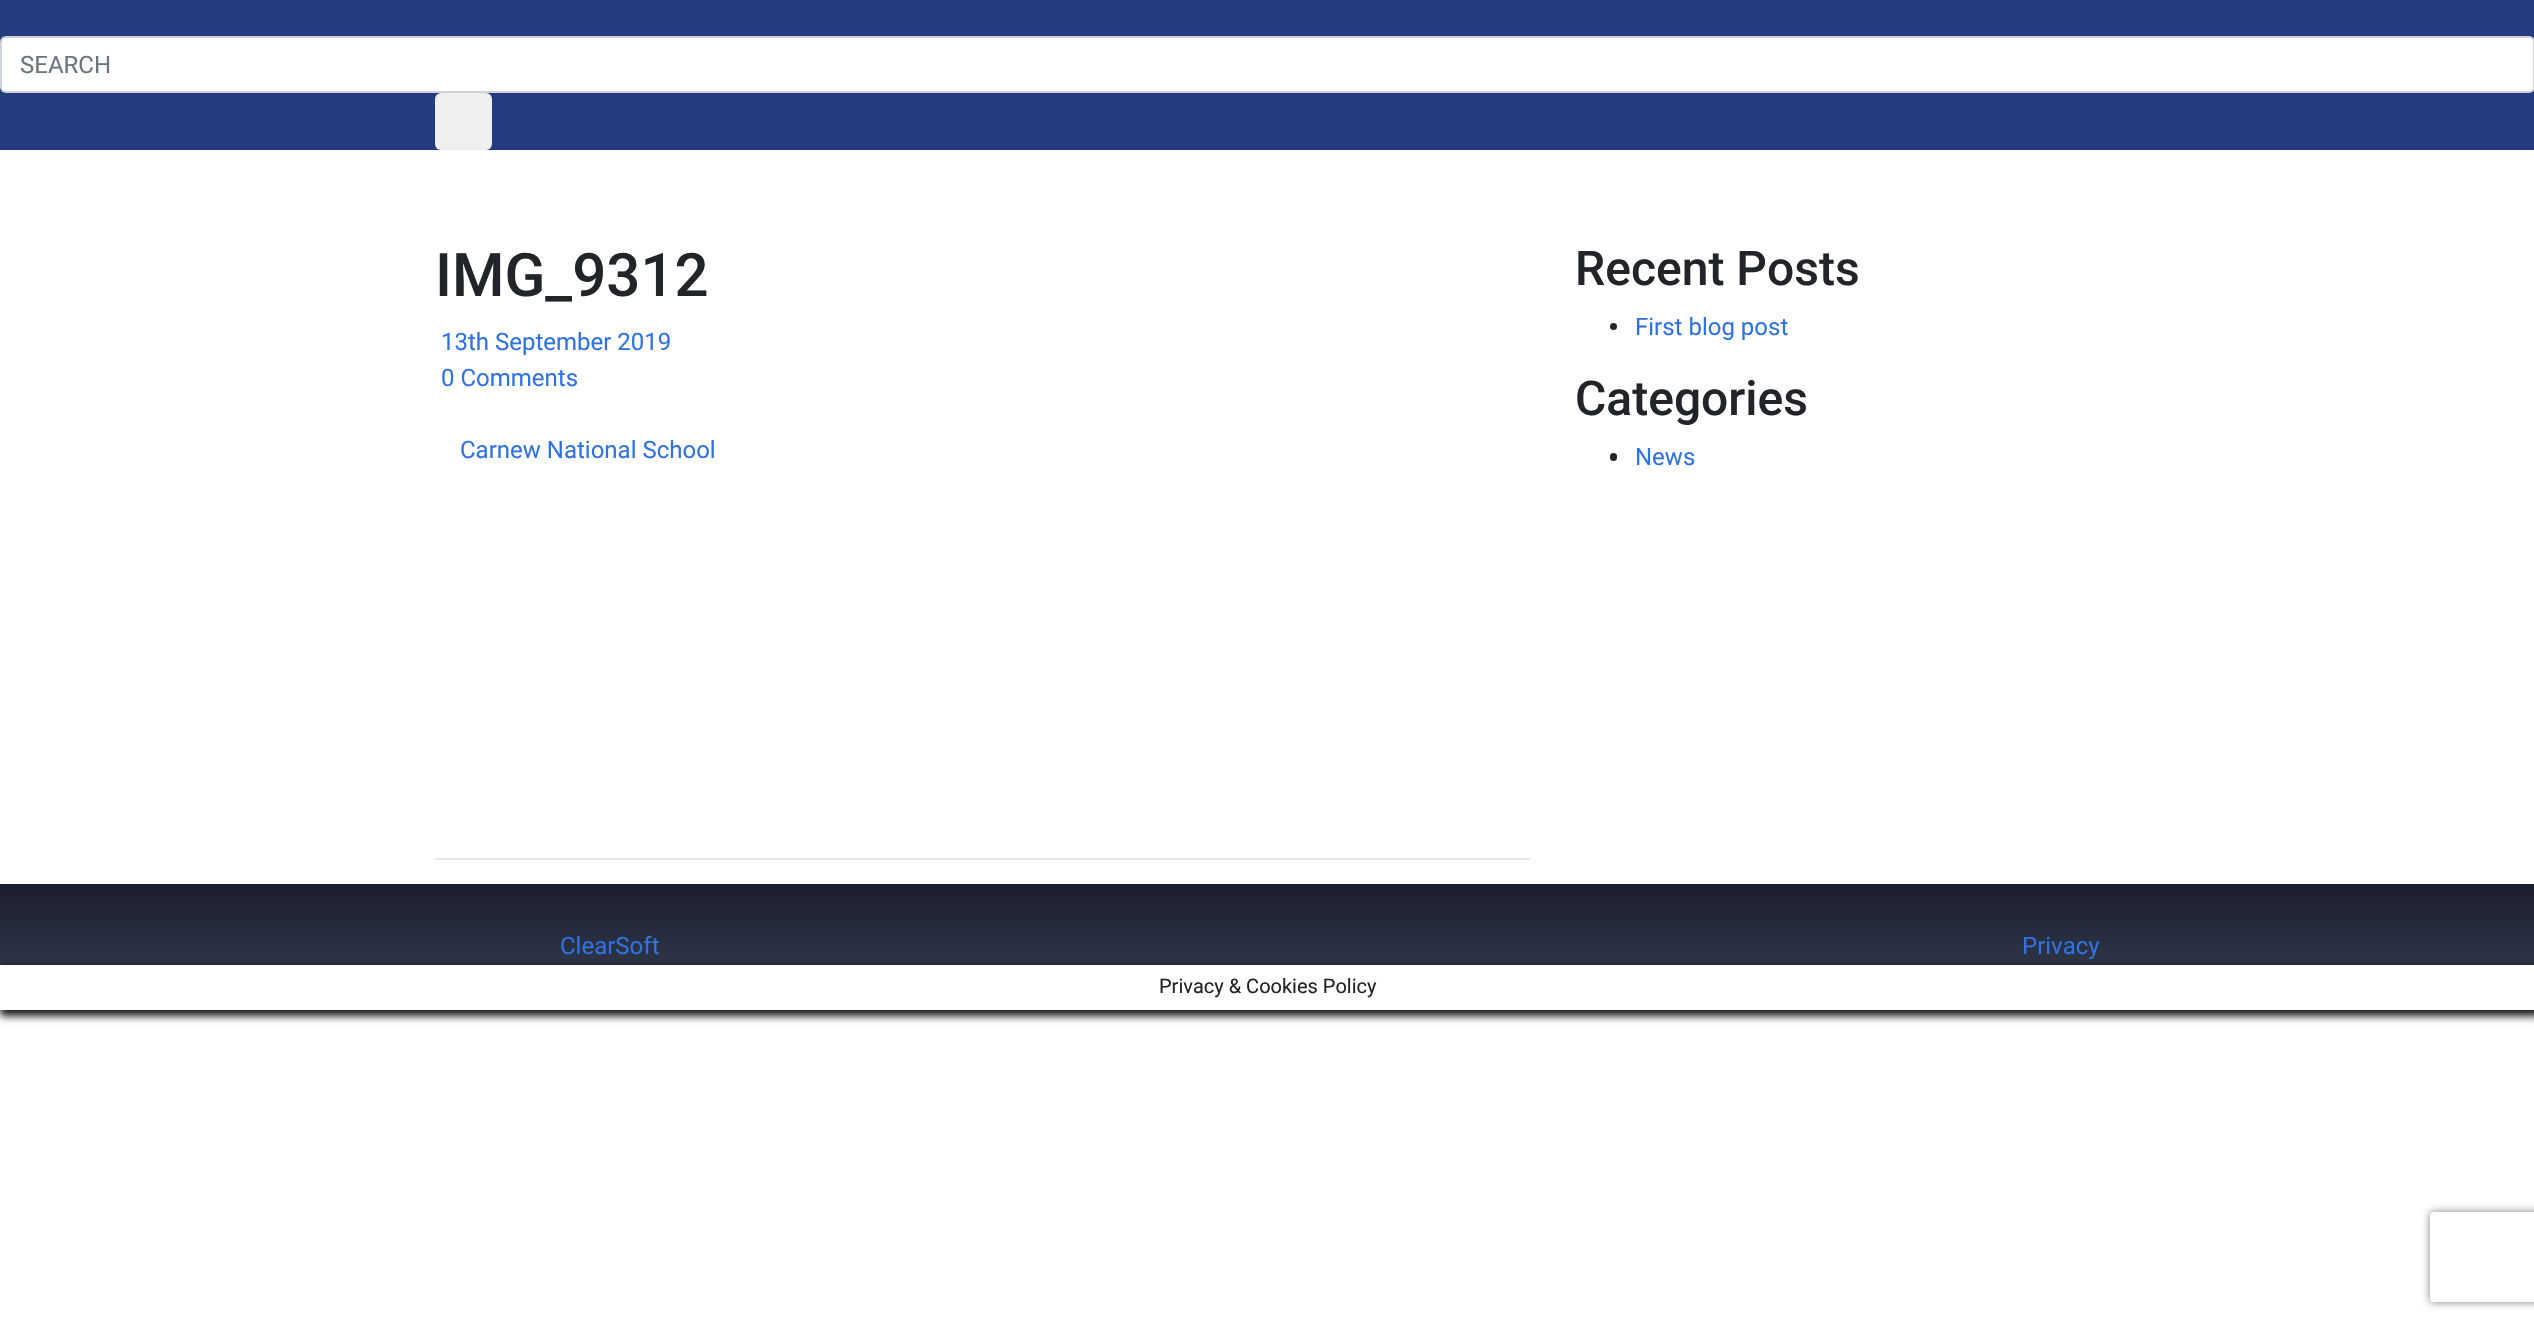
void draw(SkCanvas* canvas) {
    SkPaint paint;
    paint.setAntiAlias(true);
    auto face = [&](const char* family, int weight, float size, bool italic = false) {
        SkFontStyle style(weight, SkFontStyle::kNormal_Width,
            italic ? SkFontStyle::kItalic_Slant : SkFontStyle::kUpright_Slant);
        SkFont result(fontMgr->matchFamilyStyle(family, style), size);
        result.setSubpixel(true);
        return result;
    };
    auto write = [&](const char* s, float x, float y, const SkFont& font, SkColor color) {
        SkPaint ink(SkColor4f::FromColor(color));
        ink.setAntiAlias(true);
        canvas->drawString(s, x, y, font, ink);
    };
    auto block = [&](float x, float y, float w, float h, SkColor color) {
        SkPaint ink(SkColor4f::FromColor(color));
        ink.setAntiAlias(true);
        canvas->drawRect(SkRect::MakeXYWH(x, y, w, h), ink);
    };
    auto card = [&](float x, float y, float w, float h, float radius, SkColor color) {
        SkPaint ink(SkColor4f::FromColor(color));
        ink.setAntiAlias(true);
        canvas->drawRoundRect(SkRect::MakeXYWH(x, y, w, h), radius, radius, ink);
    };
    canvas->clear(SK_ColorWHITE);
    block(0, 0, 2534, 150, SkColorSetRGB(37, 59, 128));
    paint.setColor(SK_ColorWHITE);
    canvas->drawRoundRect(SkRect::MakeXYWH(1, 37, 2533, 55), 5, 5, paint);
    paint.setStyle(SkPaint::kStroke_Style);
    paint.setStrokeWidth(2);
    paint.setColor(SkColorSetRGB(206, 212, 218));
    canvas->drawRoundRect(SkRect::MakeXYWH(1, 37, 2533, 55), 5, 5, paint);
    auto kFont1 = face("Roboto", 400, 24);
    write("SEARCH", 20, 73, kFont1, SkColorSetRGB(108, 117, 125));
    card(435, 93, 57, 57, 6, SkColorSetRGB(239, 239, 239));
    auto kFont2 = face("Roboto", 500, 60);
    write("IMG_9312", 435, 296, kFont2, SkColorSetRGB(33, 37, 41));
    write("13th September 2019", 441, 350, kFont1, SkColorSetRGB(48, 114, 224));
    write("0 Comments", 441, 386, kFont1, SkColorSetRGB(48, 114, 224));
    write("Carnew National School", 460, 458, kFont1, SkColorSetRGB(48, 114, 224));
    block(435, 858, 1095, 2, SkColorSetRGB(230, 230, 230));
    auto kFont3 = face("Roboto", 500, 48);
    write("Recent Posts", 1575, 285, kFont3, SkColorSetRGB(33, 37, 41));
    paint.setStyle(SkPaint::kFill_Style);
    paint.setColor(SkColorSetRGB(33, 37, 41));
    canvas->drawCircle(1613.5f, 326.5f, 3.5f, paint);
    write("First blog post", 1635, 335, kFont1, SkColorSetRGB(48, 114, 224));
    write("Categories", 1575, 415, kFont3, SkColorSetRGB(33, 37, 41));
    card(1610, 453, 7, 8, 3.5f, SkColorSetRGB(33, 37, 41));
    write("News", 1635, 465, kFont1, SkColorSetRGB(48, 114, 224));
    {
        const SkColor colors[] = {SkColorSetRGB(26, 29, 43), SkColorSetRGB(46, 54, 72)};
        const float stops[] = {0, 1};
        const SkPoint ends[] = {{1268, 883}, {1268, 965}};
        paint.setShader(SkGradientShader::MakeLinear(ends, colors, stops, 2, SkTileMode::kClamp));
        paint.setAlpha(255);
    }
    canvas->drawRect(SkRect::MakeXYWH(0, 884, 2534, 81), paint);
    canvas->save();
    canvas->clipPath(SkPathBuilder(SkPathFillType::kEvenOdd).moveTo(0, 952).lineTo(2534, 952).lineTo(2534, 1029).lineTo(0, 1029).close().moveTo(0, 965).lineTo(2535, 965).lineTo(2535, 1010).lineTo(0, 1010).close().detach(), true);
    paint.setShader(nullptr);
    paint.setColor(SkColorSetRGB(22, 22, 22));
    paint.setMaskFilter(SkMaskFilter::MakeBlur(kNormal_SkBlurStyle, 4));
    canvas->drawRect(SkRect::MakeXYWH(0, 965, 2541, 51), paint);
    paint.setMaskFilter(nullptr);
    canvas->restore();
    write("ClearSoft", 560, 954, kFont1, SkColorSetRGB(48, 114, 224));
    write("Privacy", 2022, 954, kFont1, SkColorSetRGB(48, 114, 224));
    auto kFont4 = face("Roboto", 400, 20);
    write("Privacy & Cookies Policy", 1159, 993, kFont4, SkColorSetRGB(33, 37, 41));
    canvas->save();
    canvas->clipPath(SkPathBuilder(SkPathFillType::kEvenOdd).moveTo(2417, 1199).lineTo(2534, 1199).lineTo(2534, 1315).lineTo(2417, 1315).close().moveTo(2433, 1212).lineTo(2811, 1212).cubicTo(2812.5f, 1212, 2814, 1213.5f, 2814, 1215).lineTo(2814, 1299).cubicTo(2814, 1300.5f, 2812.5f, 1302, 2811, 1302).lineTo(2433, 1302).cubicTo(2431.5f, 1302, 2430, 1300.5f, 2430, 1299).lineTo(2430, 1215).cubicTo(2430, 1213.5f, 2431.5f, 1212, 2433, 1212).close().detach(), true);
    paint.setColor(SkColorSetRGB(128, 128, 128));
    paint.setMaskFilter(SkMaskFilter::MakeBlur(kNormal_SkBlurStyle, 4));
    canvas->drawRoundRect(SkRect::MakeXYWH(2430, 1212, 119, 90), 3, 3, paint);
    paint.setMaskFilter(nullptr);
    canvas->restore();
}
